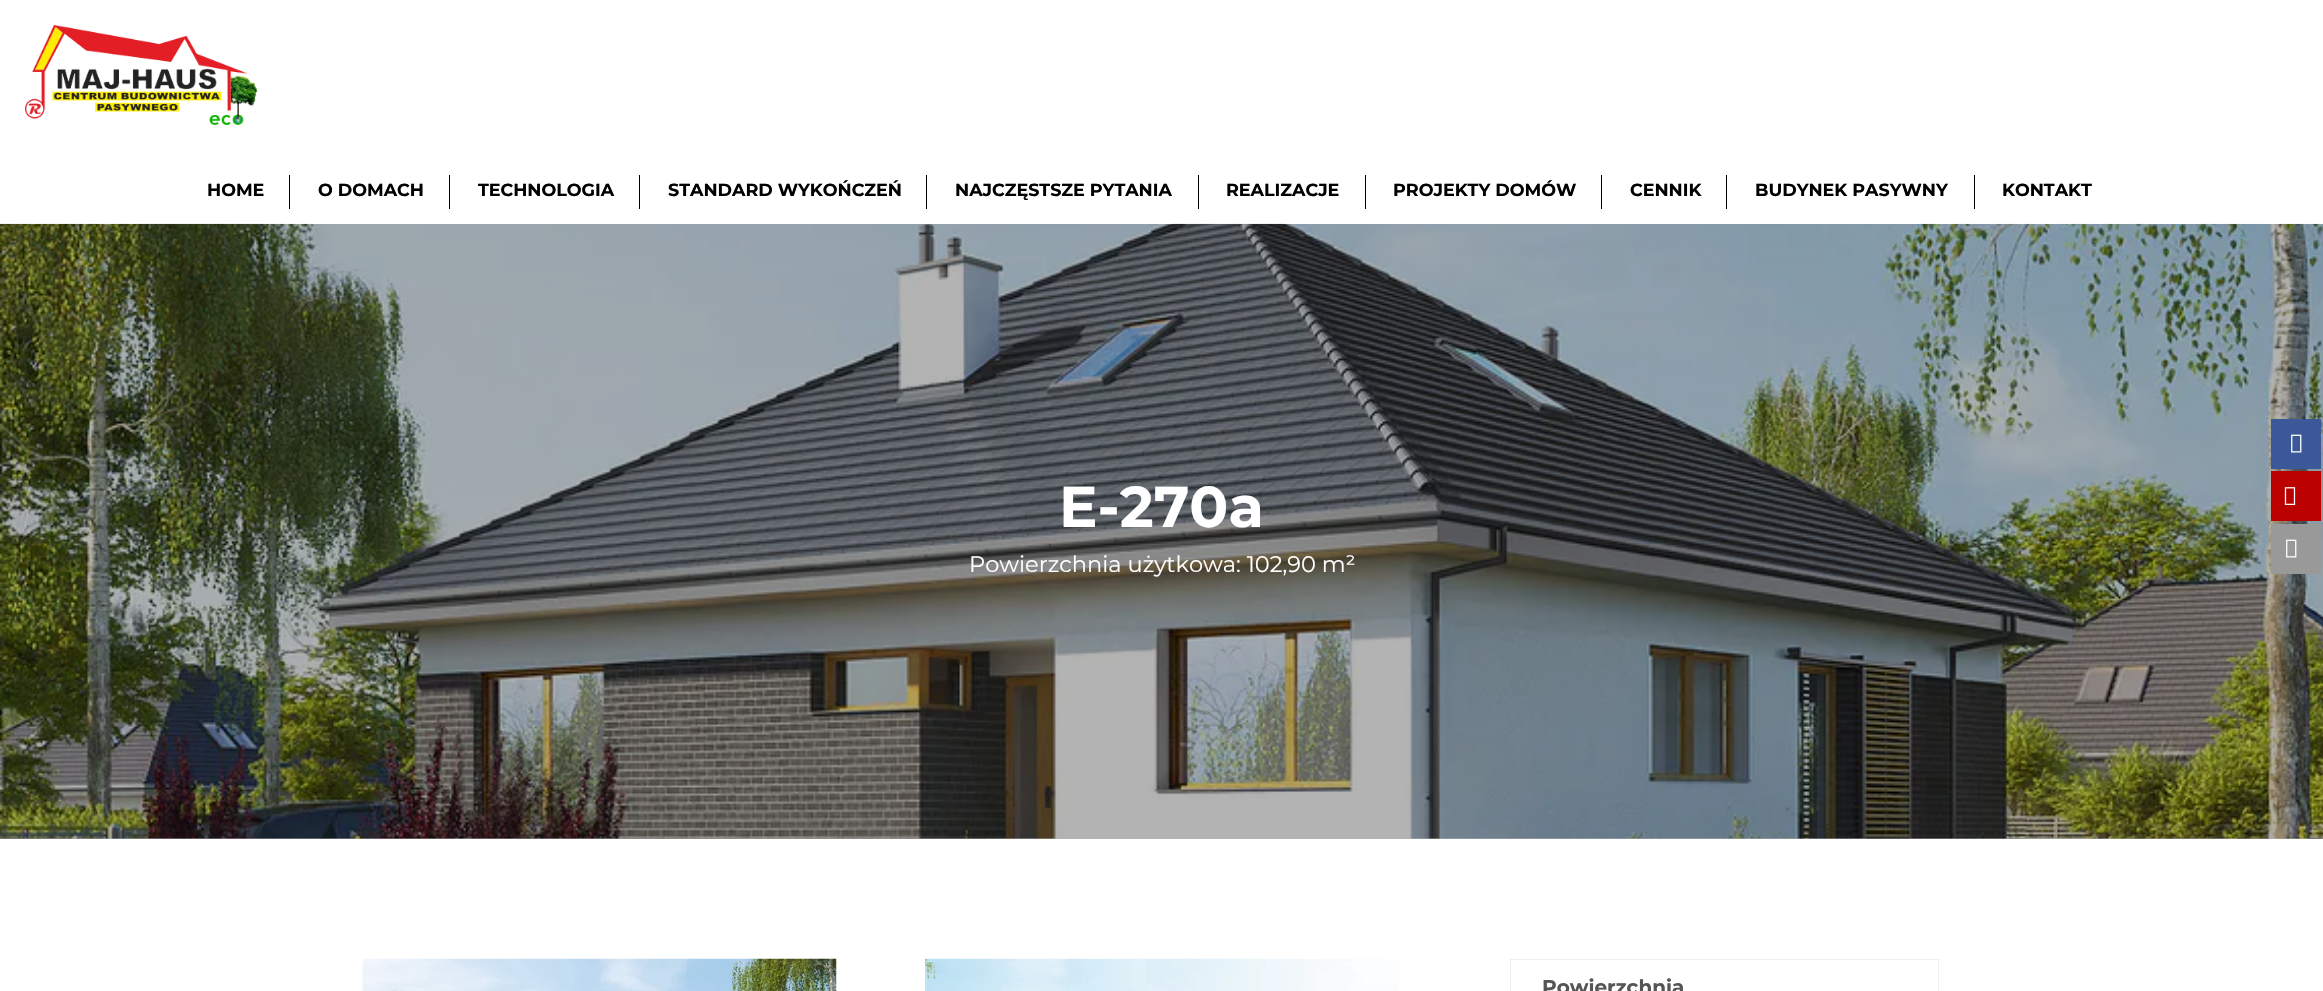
void draw(SkCanvas* canvas) {
    SkPaint paint;
    paint.setAntiAlias(true);
    auto face = [&](const char* family, int weight, float size, bool italic = false) {
        SkFontStyle style(weight, SkFontStyle::kNormal_Width,
            italic ? SkFontStyle::kItalic_Slant : SkFontStyle::kUpright_Slant);
        SkFont result(fontMgr->matchFamilyStyle(family, style), size);
        result.setSubpixel(true);
        return result;
    };
    auto write = [&](const char* s, float x, float y, const SkFont& font, SkColor color) {
        SkPaint ink(SkColor4f::FromColor(color));
        ink.setAntiAlias(true);
        canvas->drawString(s, x, y, font, ink);
    };
    auto block = [&](float x, float y, float w, float h, SkColor color) {
        SkPaint ink(SkColor4f::FromColor(color));
        ink.setAntiAlias(true);
        canvas->drawRect(SkRect::MakeXYWH(x, y, w, h), ink);
    };
    auto paste = [&](const char* path, float x, float y, float w, float h) {
        auto image = SkImages::DeferredFromEncodedData(SkData::MakeFromFileName(path));
        canvas->drawImageRect(image, SkRect::MakeXYWH(x, y, w, h), SkSamplingOptions());
    };
    canvas->clear(SK_ColorWHITE);
    block(0, 838, 2323, 1, SkColorSetRGB(179, 179, 179));
    paste("pic1.png", 25, 25, 233, 100);
    block(289, 175, 1, 34, SK_ColorBLACK);
    auto kFont1 = face("Montserrat", 700, 17.5f);
    write("HOME", 207, 196, kFont1, SK_ColorBLACK);
    block(449, 175, 1, 34, SK_ColorBLACK);
    write("O DOMACH", 318, 196, kFont1, SK_ColorBLACK);
    block(639, 175, 1, 34, SK_ColorBLACK);
    write("TECHNOLOGIA", 478, 196, kFont1, SK_ColorBLACK);
    block(926, 175, 1, 34, SK_ColorBLACK);
    write("STANDARD WYKOŃCZEŃ", 668, 196, kFont1, SK_ColorBLACK);
    block(1198, 175, 1, 34, SK_ColorBLACK);
    write("NAJCZĘSTSZE PYTANIA", 955, 196, kFont1, SK_ColorBLACK);
    block(1365, 175, 1, 34, SK_ColorBLACK);
    write("REALIZACJE", 1226, 196, kFont1, SK_ColorBLACK);
    block(1601, 175, 1, 34, SK_ColorBLACK);
    write("PROJEKTY DOMÓW", 1393, 196, kFont1, SK_ColorBLACK);
    block(1726, 175, 1, 34, SK_ColorBLACK);
    write("CENNIK", 1630, 196, kFont1, SK_ColorBLACK);
    block(1974, 175, 1, 34, SK_ColorBLACK);
    write("BUDYNEK PASYWNY", 1755, 196, kFont1, SK_ColorBLACK);
    write("KONTAKT", 2002, 196, kFont1, SK_ColorBLACK);
    paste("pic2.png", 0, 223, 2323, 616);
    auto kFont2 = face("Montserrat", 700, 57.5f);
    write("E-270a", 1059, 527, kFont2, SK_ColorWHITE);
    auto kFont3 = face("Montserrat", 400, 22.5f);
    write("Powierzchnia użytkowa: 102,90 m²", 969, 572, kFont3, SK_ColorWHITE);
    paste("pic3.png", 362, 958, 475, 33);
    paste("pic4.png", 925, 958, 474, 33);
    block(1510, 959, 429, 1, SkColorSetRGB(238, 238, 238));
    block(1938, 959, 1, 32, SkColorSetRGB(238, 238, 238));
    block(1510, 959, 1, 32, SkColorSetRGB(238, 238, 238));
    auto kFont4 = face("Montserrat", 700, 20);
    write("Powierzchnia", 1542, 994, kFont4, SkColorSetRGB(85, 85, 85));
    block(2271, 419, 50, 50, SkColorSetRGB(59, 89, 152));
    paste("pic5.png", 2291, 434, 11, 19);
    block(2271, 471, 50, 50, SkColorSetRGB(187, 0, 0));
    paste("pic6.png", 2284, 487, 12, 18);
    block(2271, 524, 50, 50, SkColorSetRGB(153, 153, 153));
    paste("pic7.png", 2286, 539, 11, 19);
}
